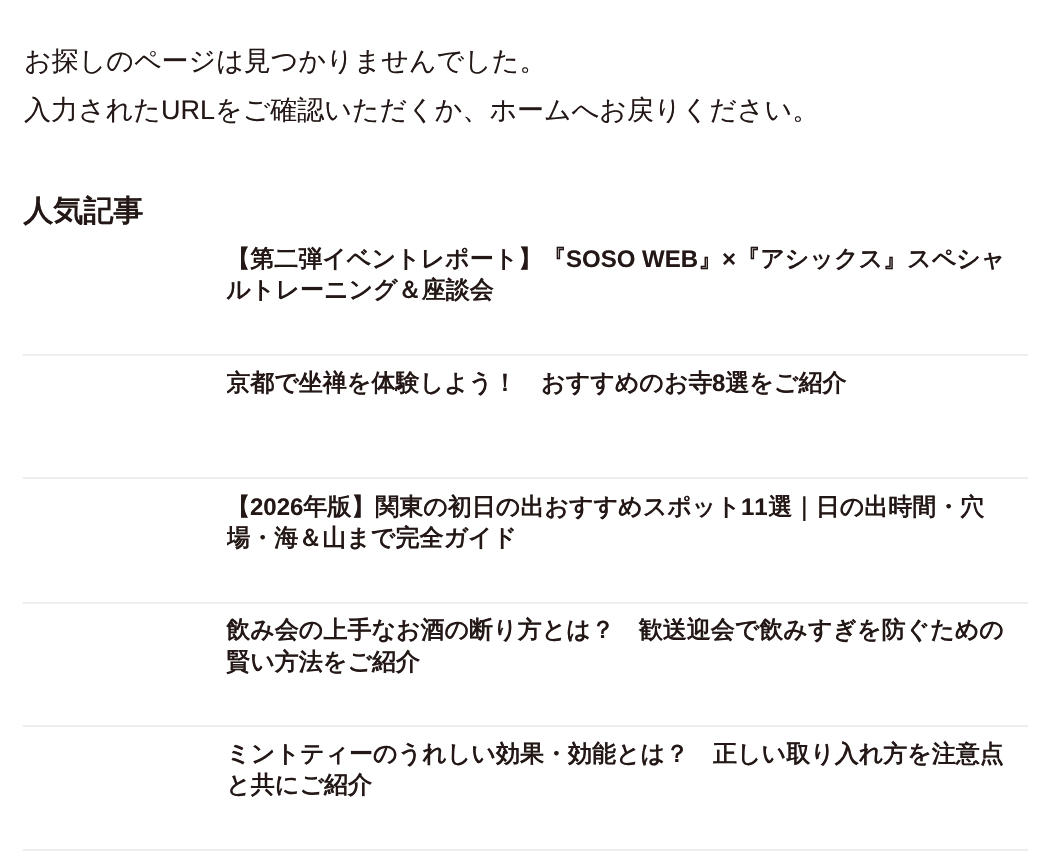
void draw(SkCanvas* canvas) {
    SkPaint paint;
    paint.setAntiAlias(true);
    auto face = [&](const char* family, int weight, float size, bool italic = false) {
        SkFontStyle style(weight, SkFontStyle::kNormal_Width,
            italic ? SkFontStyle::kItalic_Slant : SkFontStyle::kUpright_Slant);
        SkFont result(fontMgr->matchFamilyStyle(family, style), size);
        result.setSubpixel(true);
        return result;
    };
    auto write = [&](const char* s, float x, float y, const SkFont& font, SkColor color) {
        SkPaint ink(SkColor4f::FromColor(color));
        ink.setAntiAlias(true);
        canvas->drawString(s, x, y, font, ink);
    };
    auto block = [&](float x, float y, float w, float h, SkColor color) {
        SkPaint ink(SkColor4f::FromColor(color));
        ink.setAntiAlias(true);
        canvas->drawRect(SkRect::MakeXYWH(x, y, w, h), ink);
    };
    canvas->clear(SK_ColorWHITE);
    auto kFont1 = face("WenQuanYi Zen Hei", 500, 27);
    write("お探しのページは見つかりませんでした。", 24, 70, kFont1, SkColorSetRGB(35, 24, 22));
    write("入力された", 24, 119, kFont1, SkColorSetRGB(35, 24, 22));
    auto kFont2 = face("Liberation Sans", 400, 27);
    write("URL", 161, 119, kFont2, SkColorSetRGB(35, 24, 22));
    write("をご確認いただくか、ホームへお戻りください。", 215, 119, kFont1, SkColorSetRGB(35, 24, 22));
    auto kFont3 = face("WenQuanYi Zen Hei", 700, 30);
    write("人気記事", 23, 221, kFont3, SkColorSetRGB(35, 24, 22));
    block(23, 354, 1005, 2, SkColorSetRGB(238, 238, 238));
    auto kFont4 = face("WenQuanYi Zen Hei", 700, 24);
    write("【第二弾イベントレポート】『", 226, 267, kFont4, SkColorSetRGB(35, 24, 22));
    auto kFont5 = face("Liberation Sans", 700, 24);
    write("SOSO WEB", 566, 267, kFont5, SkColorSetRGB(35, 24, 22));
    write("』", 698, 267, kFont4, SkColorSetRGB(35, 24, 22));
    write("×", 722, 267, kFont5, SkColorSetRGB(35, 24, 22));
    write("『アシックス』スペシャ", 736, 267, kFont4, SkColorSetRGB(35, 24, 22));
    write("ルトレーニング＆座談会", 226, 298, kFont4, SkColorSetRGB(35, 24, 22));
    block(23, 477, 1005, 2, SkColorSetRGB(238, 238, 238));
    canvas->save();
    canvas->clipRect(SkRect::MakeXYWH(227, 369, 793, 30));
    write("京都で坐禅を体験しよう！　おすすめのお寺", 226, 391, kFont4, SkColorSetRGB(35, 24, 22));
    canvas->restore();
    write("8", 712, 391, kFont5, SkColorSetRGB(35, 24, 22));
    write("選をご紹介", 725, 391, kFont4, SkColorSetRGB(35, 24, 22));
    block(23, 602, 1005, 2, SkColorSetRGB(238, 238, 238));
    write("【", 226, 515, kFont4, SkColorSetRGB(35, 24, 22));
    write("2026", 250, 515, kFont5, SkColorSetRGB(35, 24, 22));
    write("年版】関東の初日の出おすすめスポット", 303, 515, kFont4, SkColorSetRGB(35, 24, 22));
    write("11", 741, 515, kFont5, SkColorSetRGB(35, 24, 22));
    write("選｜日の出時間・穴", 768, 515, kFont4, SkColorSetRGB(35, 24, 22));
    canvas->save();
    canvas->clipRect(SkRect::MakeXYWH(227, 492, 793, 63));
    write("場・海＆山まで完全ガイド", 226, 546, kFont4, SkColorSetRGB(35, 24, 22));
    canvas->restore();
    block(23, 725, 1005, 2, SkColorSetRGB(238, 238, 238));
    write("飲み会の上手なお酒の断り方とは？　歓送迎会で飲みすぎを防ぐための", 226, 638, kFont4, SkColorSetRGB(35, 24, 22));
    write("賢い方法をご紹介", 226, 670, kFont4, SkColorSetRGB(35, 24, 22));
    block(23, 849, 1005, 2, SkColorSetRGB(238, 238, 238));
    write("ミントティーのうれしい効果・効能とは？　正しい取り入れ方を注意点", 226, 762, kFont4, SkColorSetRGB(35, 24, 22));
    write("と共にご紹介", 226, 793, kFont4, SkColorSetRGB(35, 24, 22));
}
